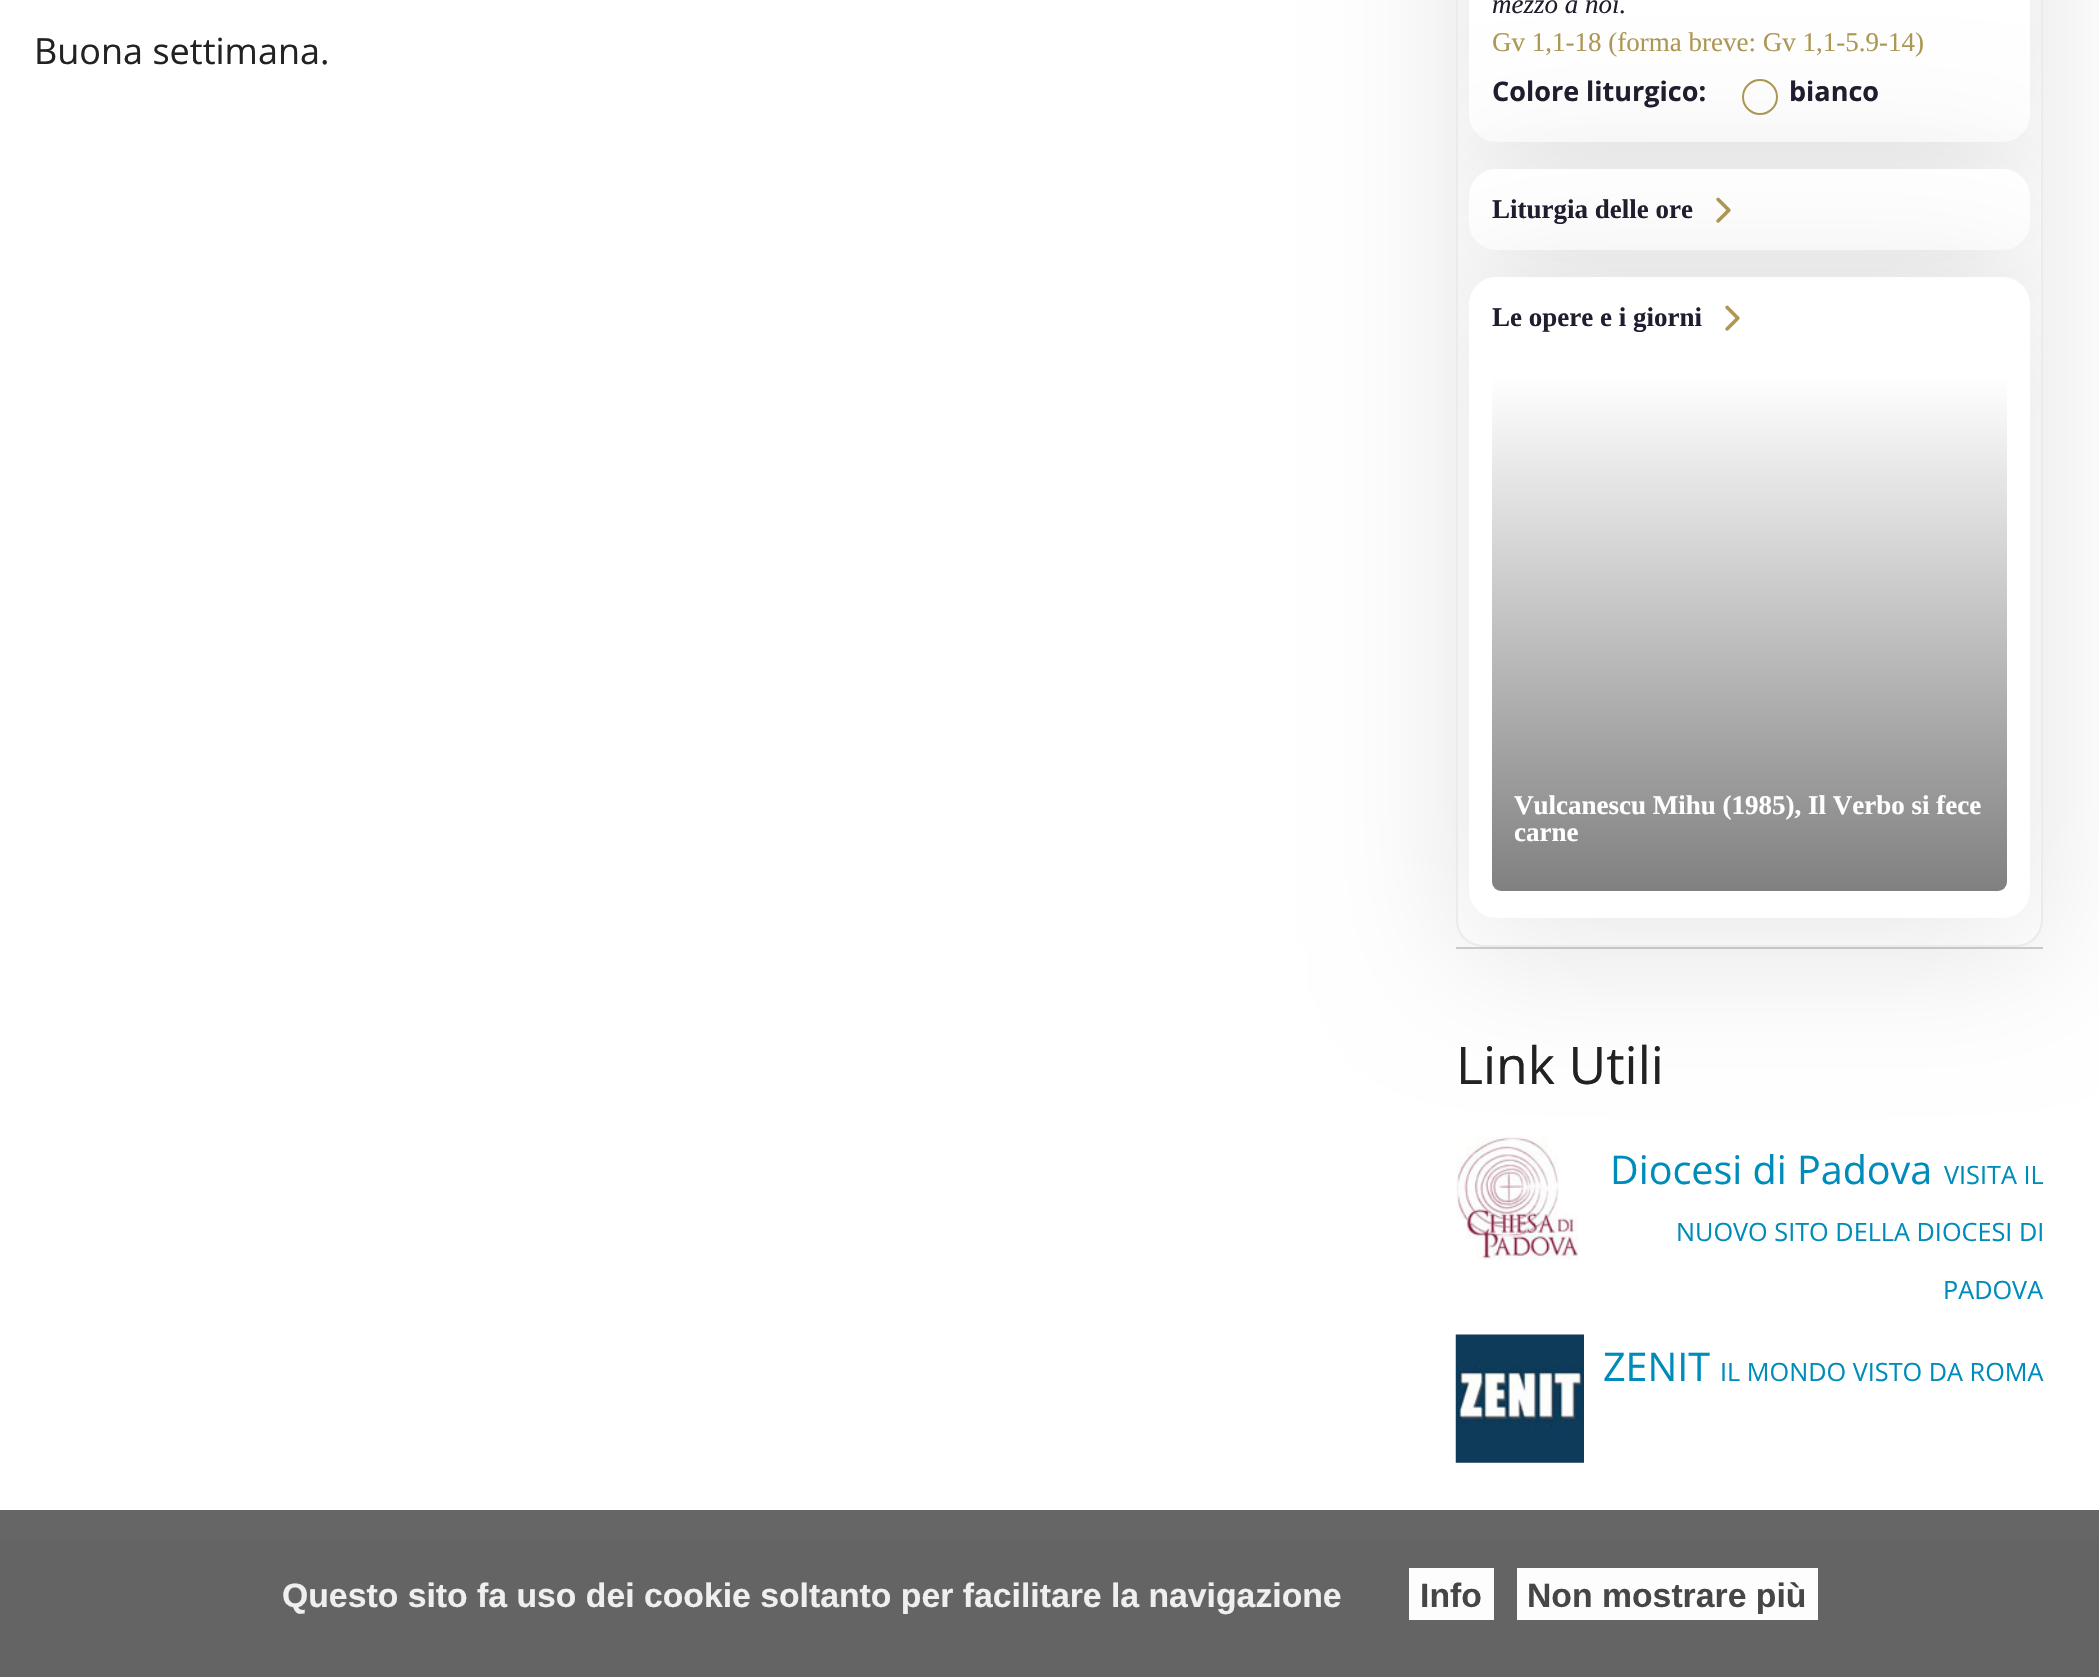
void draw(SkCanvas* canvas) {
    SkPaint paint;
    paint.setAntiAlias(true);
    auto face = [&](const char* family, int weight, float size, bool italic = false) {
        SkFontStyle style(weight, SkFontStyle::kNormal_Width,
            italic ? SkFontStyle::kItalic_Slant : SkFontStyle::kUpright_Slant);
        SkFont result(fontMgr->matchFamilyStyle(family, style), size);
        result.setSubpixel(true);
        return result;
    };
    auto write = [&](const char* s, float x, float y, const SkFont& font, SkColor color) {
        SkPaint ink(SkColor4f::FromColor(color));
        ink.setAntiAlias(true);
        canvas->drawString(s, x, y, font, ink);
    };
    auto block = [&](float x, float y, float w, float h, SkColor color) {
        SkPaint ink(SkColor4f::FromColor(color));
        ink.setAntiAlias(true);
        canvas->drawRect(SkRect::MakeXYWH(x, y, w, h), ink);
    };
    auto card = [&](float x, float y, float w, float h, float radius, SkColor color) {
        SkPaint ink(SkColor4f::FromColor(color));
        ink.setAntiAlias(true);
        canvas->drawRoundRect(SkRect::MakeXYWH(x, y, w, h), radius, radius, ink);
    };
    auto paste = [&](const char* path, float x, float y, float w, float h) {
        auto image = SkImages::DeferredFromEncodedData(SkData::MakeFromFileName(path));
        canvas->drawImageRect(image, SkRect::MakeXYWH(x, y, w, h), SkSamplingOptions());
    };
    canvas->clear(SK_ColorWHITE);
    block(0, 1510, 2099, 31, SkColorSetRGB(102, 102, 102));
    auto kFont1 = face("Open Sans", 400, 36);
    write("Buona settimana.", 34, 64, kFont1, SkColorSetRGB(34, 34, 34));
    block(1456, 947, 587, 2, SkColorSetRGB(209, 209, 209));
    paste("pic2.png", 1456, 1136, 123, 124);
    paint.setColor(SkColorSetARGB(26, 0, 0, 0));
    paint.setMaskFilter(SkMaskFilter::MakeBlur(kNormal_SkBlurStyle, 67.5f));
    canvas->drawRoundRect(SkRect::MakeXYWH(1456, -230, 587, 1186), 27, 27, paint);
    paint.setMaskFilter(nullptr);
    paint.setColor(SK_ColorWHITE);
    canvas->drawRoundRect(SkRect::MakeXYWH(1457, -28, 585, 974), 26, 26, paint);
    paint.setStyle(SkPaint::kStroke_Style);
    paint.setStrokeWidth(2);
    paint.setColor(SkColorSetRGB(235, 235, 235));
    canvas->drawRoundRect(SkRect::MakeXYWH(1457, -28, 585, 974), 26, 26, paint);
    canvas->save();
    canvas->clipPath(SkPathBuilder().moveTo(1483, -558).lineTo(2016, -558).cubicTo(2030, -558, 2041, -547, 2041, -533).lineTo(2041, 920).cubicTo(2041, 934, 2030, 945, 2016, 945).lineTo(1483, 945).cubicTo(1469, 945, 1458, 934, 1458, 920).lineTo(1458, -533).cubicTo(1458, -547, 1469, -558, 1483, -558).close().detach(), true);
    paint.setStyle(SkPaint::kFill_Style);
    paint.setColor(SkColorSetARGB(26, 0, 0, 0));
    paint.setMaskFilter(SkMaskFilter::MakeBlur(kNormal_SkBlurStyle, 67.5f));
    canvas->drawRoundRect(SkRect::MakeXYWH(1469, -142, 561, 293), 27, 27, paint);
    paint.setMaskFilter(nullptr);
    canvas->restore();
    card(1469, -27, 561, 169, 27, SK_ColorWHITE);
    auto kFont2 = face("Liberation Serif", 400, 27, true);
    write("mezzo a noi.", 1492, 13, kFont2, SkColorSetRGB(31, 30, 47));
    auto kFont3 = face("Liberation Serif", 400, 27);
    write("Gv 1,1-18 (forma breve: Gv 1,1-5.9-14)", 1492, 51, kFont3, SkColorSetRGB(174, 152, 84));
    auto kFont4 = face("Open Sans", 700, 27);
    write("Colore liturgico:", 1492, 101, kFont4, SkColorSetRGB(31, 30, 47));
    paint.setStyle(SkPaint::kStroke_Style);
    paint.setColor(SkColorSetRGB(174, 152, 84));
    canvas->drawCircle(1760, 97, 17, paint);
    write("bianco", 1789, 101, kFont4, SkColorSetRGB(31, 30, 47));
    canvas->save();
    canvas->clipPath(SkPathBuilder().moveTo(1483, -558).lineTo(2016, -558).cubicTo(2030, -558, 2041, -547, 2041, -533).lineTo(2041, 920).cubicTo(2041, 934, 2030, 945, 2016, 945).lineTo(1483, 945).cubicTo(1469, 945, 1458, 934, 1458, 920).lineTo(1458, -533).cubicTo(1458, -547, 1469, -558, 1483, -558).close().detach(), true);
    paint.setStyle(SkPaint::kFill_Style);
    paint.setColor(SkColorSetARGB(26, 0, 0, 0));
    paint.setMaskFilter(SkMaskFilter::MakeBlur(kNormal_SkBlurStyle, 67.5f));
    canvas->drawRoundRect(SkRect::MakeXYWH(1469, 178, 561, 81), 27, 27, paint);
    paint.setMaskFilter(nullptr);
    canvas->restore();
    card(1469, 169, 561, 81, 27, SK_ColorWHITE);
    auto kFont5 = face("Liberation Serif", 700, 27);
    write("Liturgia delle ore", 1492, 218, kFont5, SkColorSetRGB(31, 30, 47));
    paste("pic1.png", 1716, 197, 15, 26);
    canvas->save();
    canvas->clipPath(SkPathBuilder().moveTo(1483, -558).lineTo(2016, -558).cubicTo(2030, -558, 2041, -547, 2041, -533).lineTo(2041, 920).cubicTo(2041, 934, 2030, 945, 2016, 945).lineTo(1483, 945).cubicTo(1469, 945, 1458, 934, 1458, 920).lineTo(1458, -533).cubicTo(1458, -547, 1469, -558, 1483, -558).close().detach(), true);
    paint.setMaskFilter(SkMaskFilter::MakeBlur(kNormal_SkBlurStyle, 67.5f));
    canvas->drawRoundRect(SkRect::MakeXYWH(1469, 286, 561, 641), 27, 27, paint);
    paint.setMaskFilter(nullptr);
    canvas->restore();
    card(1469, 277, 561, 641, 27, SK_ColorWHITE);
    write("Le opere e i giorni", 1492, 326, kFont5, SkColorSetRGB(31, 30, 47));
    paste("pic1.png", 1725, 305, 15, 26);
    {
        const SkColor colors[] = {SK_ColorWHITE, SkColorSetRGB(128, 128, 128)};
        const float stops[] = {0, 1};
        const SkPoint ends[] = {{1749, 376}, {1749, 891}};
        paint.setShader(SkGradientShader::MakeLinear(ends, colors, stops, 2, SkTileMode::kClamp));
        paint.setAlpha(255);
    }
    canvas->drawRoundRect(SkRect::MakeXYWH(1492, 376, 515, 515), 9, 9, paint);
    write("Vulcanescu Mihu (1985), Il Verbo si fece", 1514, 814, kFont5, SK_ColorWHITE);
    write("carne", 1514, 841, kFont5, SK_ColorWHITE);
    auto kFont6 = face("Open Sans", 400, 51.75f);
    write("Link Utili", 1456, 1084, kFont6, SkColorSetRGB(34, 34, 34));
    auto kFont7 = face("Open Sans", 400, 39.5f);
    write("Diocesi di Padova", 1610, 1184, kFont7, SkColorSetRGB(0, 140, 186));
    auto kFont8 = face("Open Sans", 400, 25.25f);
    write("VISITA IL", 1944, 1184, kFont8, SkColorSetRGB(0, 140, 186));
    write("NUOVO SITO DELLA DIOCESI DI", 1676, 1241, kFont8, SkColorSetRGB(0, 140, 186));
    write("PADOVA", 1943, 1299, kFont8, SkColorSetRGB(0, 140, 186));
    paste("pic3.png", 1455, 1334, 129, 129);
    write("ZENIT", 1603, 1381, kFont7, SkColorSetRGB(0, 140, 186));
    write("IL MONDO VISTO DA ROMA", 1720, 1381, kFont8, SkColorSetRGB(0, 140, 186));
    block(0, 1541, 2099, 136, SkColorSetRGB(100, 100, 100));
    auto kFont9 = face("Liberation Sans", 700, 33.75f);
    write("Questo sito fa uso dei cookie soltanto per facilitare la navigazione", 282, 1607, kFont9, SkColorSetRGB(239, 239, 239));
    block(1409, 1568, 85, 52, SkColorSetRGB(253, 253, 253));
    write("Info", 1420, 1607, kFont9, SkColorSetRGB(70, 70, 70));
    block(1517, 1568, 301, 52, SkColorSetRGB(253, 253, 253));
    write("Non mostrare più", 1527, 1607, kFont9, SkColorSetRGB(70, 70, 70));
}
